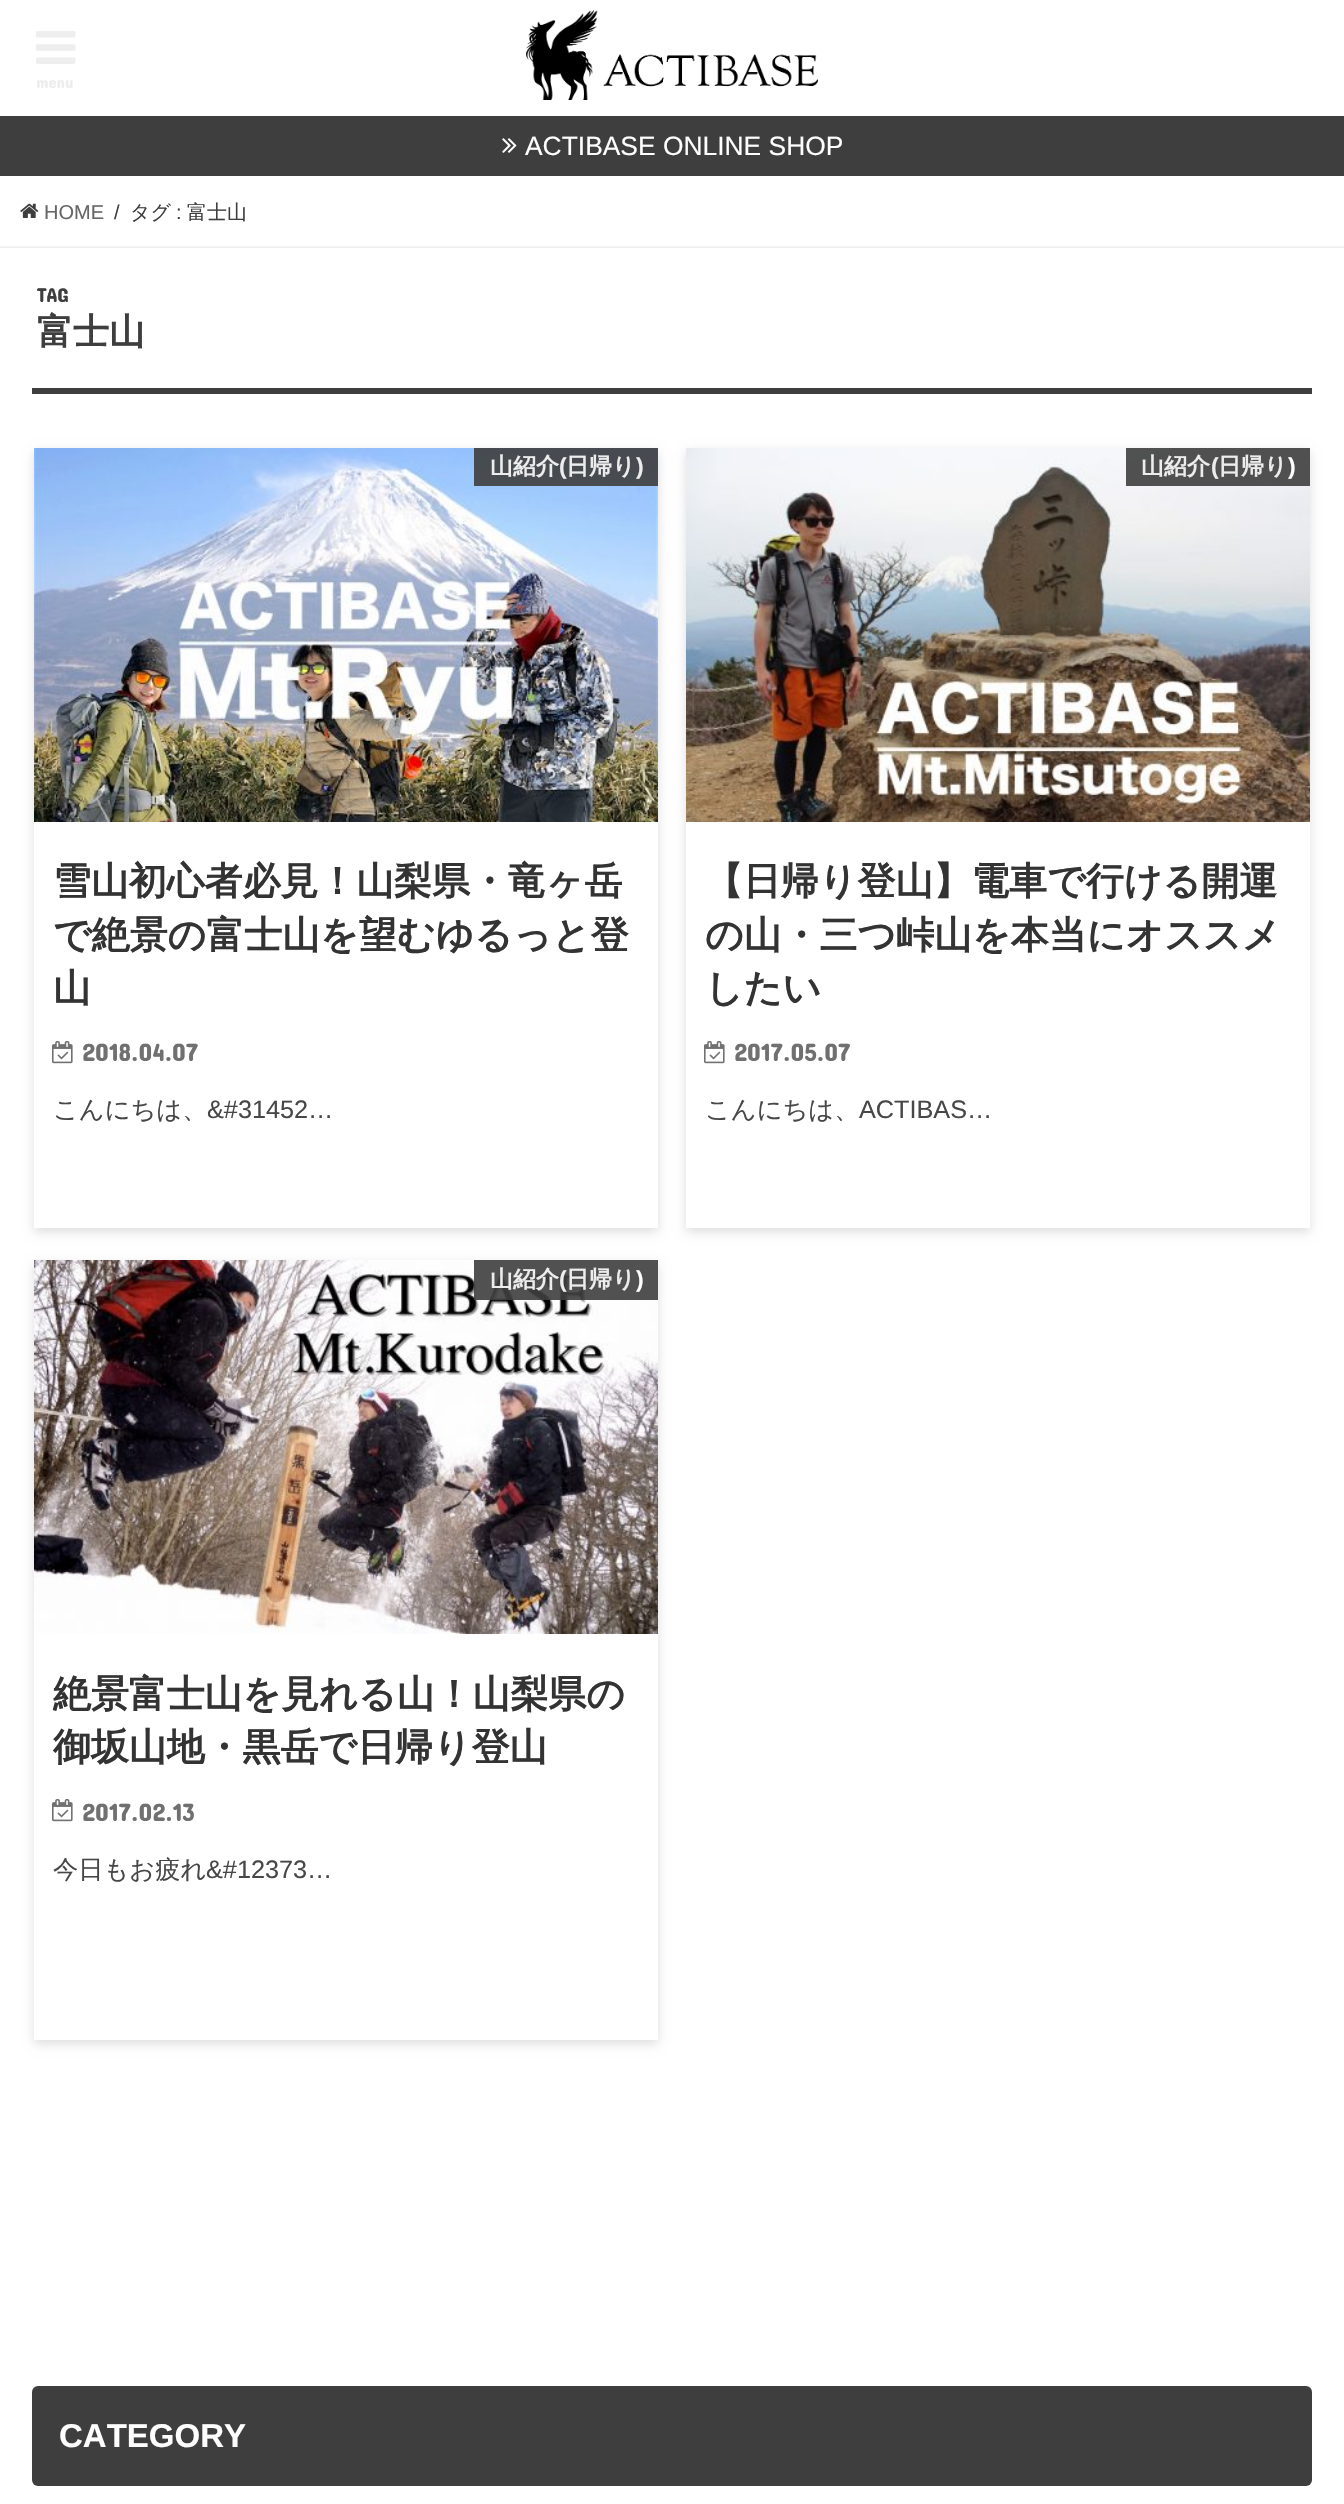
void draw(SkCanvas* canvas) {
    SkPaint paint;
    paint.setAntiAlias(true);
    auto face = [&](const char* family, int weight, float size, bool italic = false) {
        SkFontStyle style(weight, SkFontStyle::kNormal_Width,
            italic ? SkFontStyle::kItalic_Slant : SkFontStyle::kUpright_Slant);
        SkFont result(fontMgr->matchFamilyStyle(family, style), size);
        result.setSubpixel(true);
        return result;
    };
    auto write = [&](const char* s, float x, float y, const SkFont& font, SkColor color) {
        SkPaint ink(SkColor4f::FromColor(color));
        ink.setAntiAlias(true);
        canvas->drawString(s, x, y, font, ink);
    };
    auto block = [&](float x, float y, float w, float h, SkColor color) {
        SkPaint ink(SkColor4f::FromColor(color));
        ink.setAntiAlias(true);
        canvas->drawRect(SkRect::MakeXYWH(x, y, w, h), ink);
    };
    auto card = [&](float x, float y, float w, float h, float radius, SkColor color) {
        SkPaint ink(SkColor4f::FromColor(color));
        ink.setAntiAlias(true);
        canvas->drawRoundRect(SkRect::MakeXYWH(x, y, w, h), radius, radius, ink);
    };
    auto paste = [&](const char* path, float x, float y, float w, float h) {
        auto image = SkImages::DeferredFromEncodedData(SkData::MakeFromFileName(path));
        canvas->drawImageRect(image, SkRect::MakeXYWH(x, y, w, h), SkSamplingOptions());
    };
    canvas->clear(SK_ColorWHITE);
    paste("pic1.png", 36, 31, 40, 33);
    auto kFont1 = face("Concert One", 400, 16);
    write("menu", 36, 88, kFont1, SkColorSetRGB(237, 237, 238));
    paste("pic2.png", 526, 10, 292, 90);
    block(0, 116, 1344, 60, SkColorSetRGB(62, 62, 62));
    paste("pic3.png", 502, 138, 15, 15);
    auto kFont2 = face("Liberation Sans", 400, 26.4f);
    write("ACTIBASE ONLINE SHOP", 525, 155, kFont2, SK_ColorWHITE);
    block(0, 246, 1344, 2, SkColorSetRGB(247, 247, 247));
    paste("pic4.png", 20, 203, 19, 15);
    auto kFont3 = face("Liberation Sans", 400, 20);
    write("HOME", 44, 219, kFont3, SkColorSetRGB(102, 102, 102));
    write("/", 114, 219, kFont3, SkColorSetRGB(62, 62, 62));
    auto kFont4 = face("WenQuanYi Zen Hei", 500, 20);
    write("タグ", 130, 219, kFont4, SkColorSetRGB(62, 62, 62));
    write(":", 176, 219, kFont3, SkColorSetRGB(62, 62, 62));
    write("富士山", 187, 219, kFont4, SkColorSetRGB(62, 62, 62));
    paint.setColor(SkColorSetRGB(221, 221, 221));
    paint.setMaskFilter(SkMaskFilter::MakeBlur(kNormal_SkBlurStyle, 1));
    canvas->drawRect(SkRect::MakeXYWH(0, 248, 1344, 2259), paint);
    paint.setMaskFilter(nullptr);
    block(0, 248, 1344, 2256, SK_ColorWHITE);
    block(32, 388, 1280, 6, SkColorSetRGB(62, 62, 62));
    auto kFont5 = face("Concert One", 400, 20);
    write("TAG", 37, 302, kFont5, SkColorSetRGB(62, 62, 62));
    auto kFont6 = face("WenQuanYi Zen Hei", 700, 36);
    write("富士山", 37, 344, kFont6, SkColorSetRGB(62, 62, 62));
    canvas->save();
    canvas->clipPath(SkPathBuilder(SkPathFillType::kEvenOdd).moveTo(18, 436).lineTo(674, 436).lineTo(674, 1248).lineTo(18, 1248).close().moveTo(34, 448).lineTo(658, 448).lineTo(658, 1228).lineTo(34, 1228).close().detach(), true);
    paint.setColor(SkColorSetARGB(33, 0, 0, 0));
    paint.setMaskFilter(SkMaskFilter::MakeBlur(kNormal_SkBlurStyle, 5));
    canvas->drawRect(SkRect::MakeXYWH(34, 452, 624, 780), paint);
    paint.setMaskFilter(nullptr);
    canvas->restore();
    paste("pic5.png", 34, 448, 624, 374);
    block(474, 448, 184, 38, SkColorSetARGB(230, 62, 62, 62));
    auto kFont7 = face("WenQuanYi Zen Hei", 700, 23);
    write("山紹介", 490, 474, kFont7, SkColorSetRGB(237, 237, 238));
    auto kFont8 = face("Liberation Sans", 700, 23);
    write("(", 559, 474, kFont8, SkColorSetRGB(237, 237, 238));
    write("日帰り", 566, 474, kFont7, SkColorSetRGB(237, 237, 238));
    write(")", 636, 474, kFont8, SkColorSetRGB(237, 237, 238));
    auto kFont9 = face("WenQuanYi Zen Hei", 700, 37.9f);
    write("雪山初心者必見！山梨県・竜ヶ岳", 53, 894, kFont9, SkColorSetRGB(51, 51, 51));
    write("で絶景の富士山を望むゆるっと登", 53, 948, kFont9, SkColorSetRGB(51, 51, 51));
    write("山", 53, 1001, kFont9, SkColorSetRGB(51, 51, 51));
    paste("pic6.png", 52, 1041, 21, 23);
    auto kFont10 = face("Concert One", 400, 25.25f);
    write("2018.04.07", 82, 1061, kFont10, SkColorSetRGB(112, 112, 112));
    auto kFont11 = face("WenQuanYi Zen Hei", 500, 25.25f);
    write("こんにちは、", 53, 1118, kFont11, SkColorSetRGB(71, 71, 71));
    auto kFont12 = face("Liberation Sans", 400, 25.25f);
    write("&#31452…", 207, 1118, kFont12, SkColorSetRGB(71, 71, 71));
    canvas->save();
    canvas->clipPath(SkPathBuilder(SkPathFillType::kEvenOdd).moveTo(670, 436).lineTo(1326, 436).lineTo(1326, 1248).lineTo(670, 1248).close().moveTo(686, 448).lineTo(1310, 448).lineTo(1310, 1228).lineTo(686, 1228).close().detach(), true);
    paint.setMaskFilter(SkMaskFilter::MakeBlur(kNormal_SkBlurStyle, 5));
    canvas->drawRect(SkRect::MakeXYWH(686, 452, 624, 780), paint);
    paint.setMaskFilter(nullptr);
    canvas->restore();
    paste("pic7.png", 686, 448, 624, 374);
    block(1126, 448, 184, 38, SkColorSetARGB(230, 62, 62, 62));
    write("山紹介", 1141, 474, kFont7, SkColorSetRGB(237, 237, 238));
    write("(", 1211, 474, kFont8, SkColorSetRGB(237, 237, 238));
    write("日帰り", 1218, 474, kFont7, SkColorSetRGB(237, 237, 238));
    write(")", 1288, 474, kFont8, SK_ColorWHITE);
    write("【日帰り登山】電車で行ける開運", 705, 894, kFont9, SkColorSetRGB(51, 51, 51));
    write("の山・三つ峠山を本当にオススメ", 705, 948, kFont9, SkColorSetRGB(51, 51, 51));
    write("したい", 705, 1001, kFont9, SkColorSetRGB(51, 51, 51));
    paste("pic6.png", 704, 1041, 21, 23);
    write("2017.05.07", 734, 1061, kFont10, SkColorSetRGB(112, 112, 112));
    write("こんにちは、", 705, 1118, kFont11, SkColorSetRGB(71, 71, 71));
    write("ACTIBAS…", 859, 1118, kFont12, SkColorSetRGB(71, 71, 71));
    canvas->save();
    canvas->clipPath(SkPathBuilder(SkPathFillType::kEvenOdd).moveTo(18, 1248).lineTo(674, 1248).lineTo(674, 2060).lineTo(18, 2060).close().moveTo(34, 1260).lineTo(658, 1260).lineTo(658, 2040).lineTo(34, 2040).close().detach(), true);
    paint.setMaskFilter(SkMaskFilter::MakeBlur(kNormal_SkBlurStyle, 5));
    canvas->drawRect(SkRect::MakeXYWH(34, 1264, 624, 780), paint);
    paint.setMaskFilter(nullptr);
    canvas->restore();
    paste("pic8.png", 34, 1260, 624, 374);
    block(474, 1260, 184, 40, SkColorSetARGB(230, 62, 62, 62));
    write("山紹介", 490, 1287, kFont7, SkColorSetRGB(237, 237, 238));
    write("(", 559, 1287, kFont8, SkColorSetRGB(237, 237, 238));
    write("日帰り", 566, 1287, kFont7, SkColorSetRGB(237, 237, 238));
    write(")", 636, 1287, kFont8, SK_ColorWHITE);
    write("絶景富士山を見れる山！山梨県の", 53, 1707, kFont9, SkColorSetRGB(51, 51, 51));
    write("御坂山地・黒岳で日帰り登山", 53, 1760, kFont9, SkColorSetRGB(51, 51, 51));
    paste("pic6.png", 52, 1799, 21, 23);
    write("2017.02.13", 82, 1821, kFont10, SkColorSetRGB(112, 112, 112));
    write("今日もお疲れ", 53, 1878, kFont11, SkColorSetRGB(71, 71, 71));
    write("&#12373…", 206, 1878, kFont12, SkColorSetRGB(71, 71, 71));
    card(32, 2386, 1280, 100, 6, SkColorSetRGB(62, 62, 62));
    auto kFont13 = face("Liberation Sans", 700, 33);
    write("CATEGORY", 59, 2447, kFont13, SK_ColorWHITE);
}
